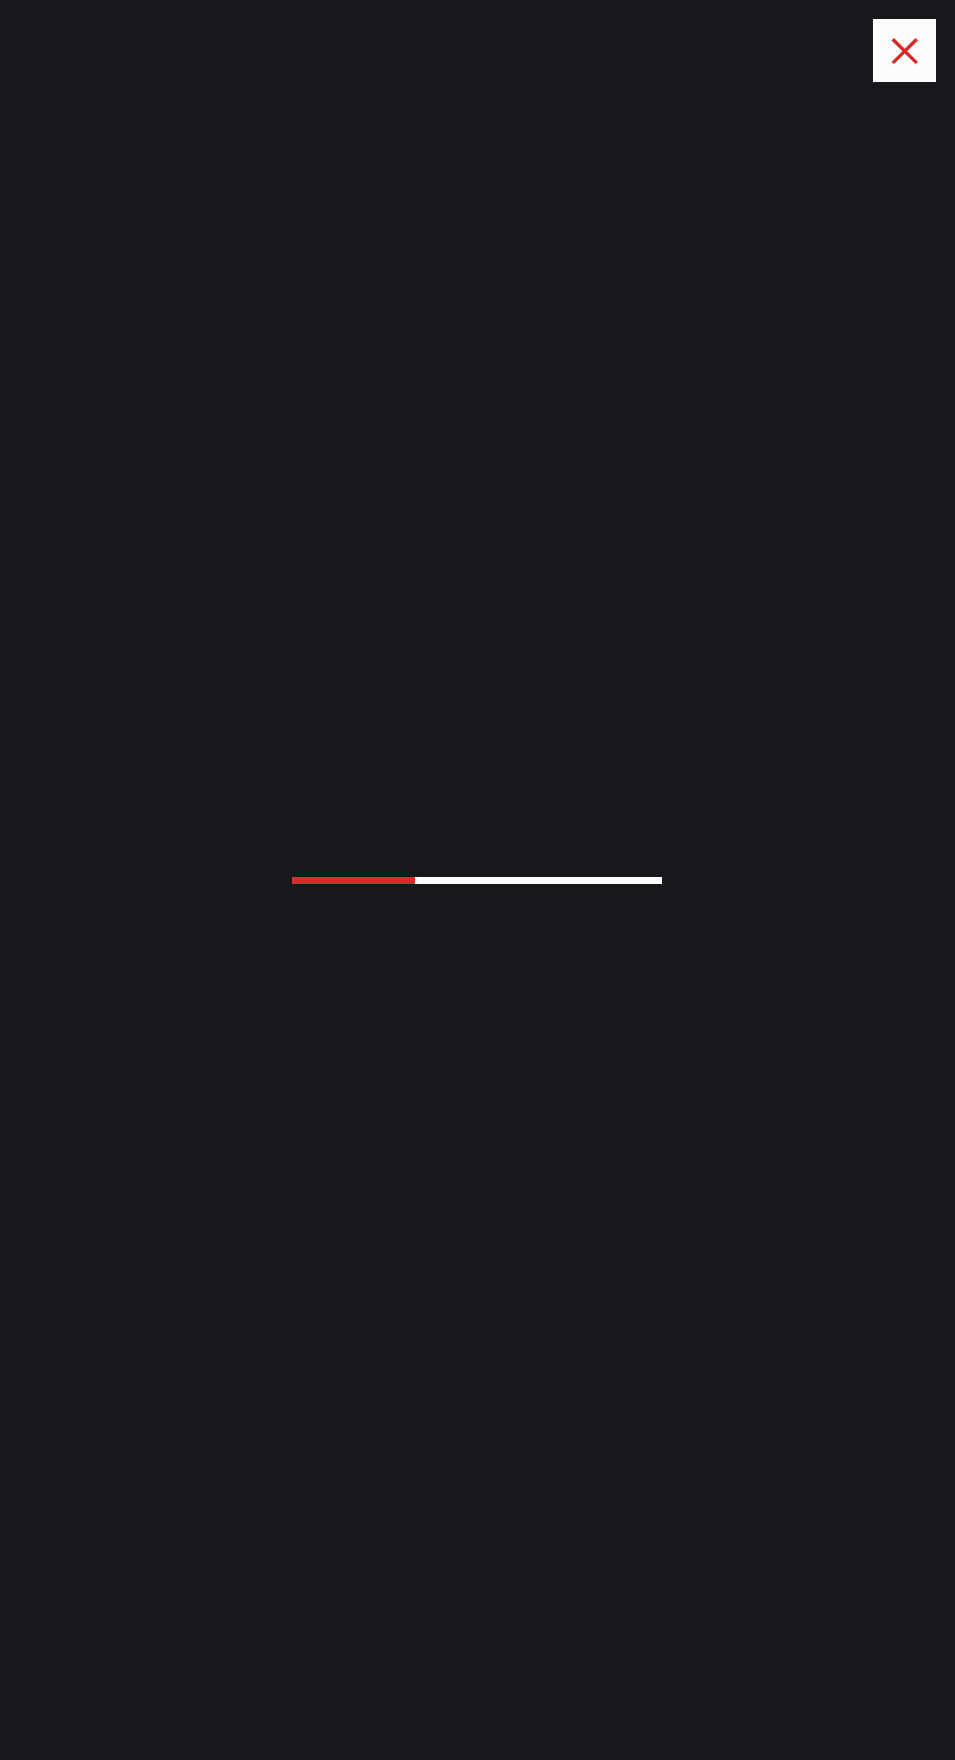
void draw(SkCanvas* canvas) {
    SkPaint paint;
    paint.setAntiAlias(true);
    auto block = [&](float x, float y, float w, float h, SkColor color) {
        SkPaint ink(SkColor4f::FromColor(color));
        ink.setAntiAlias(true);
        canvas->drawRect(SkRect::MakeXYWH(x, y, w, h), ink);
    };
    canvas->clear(SkColorSetRGB(22, 24, 27));
    block(873, 19, 63, 63, SkColorSetRGB(252, 252, 252));
    paint.setColor(SkColorSetRGB(212, 41, 36));
    canvas->drawPath(SkPathBuilder().moveTo(891.5f, 62).lineTo(915.5f, 38).lineTo(918, 40.5f).lineTo(894, 64).close().detach(), paint);
    canvas->drawPath(SkPathBuilder().moveTo(915.5f, 64).lineTo(891.5f, 40.5f).lineTo(894, 38).lineTo(918, 62).close().detach(), paint);
    block(415, 877, 247, 7, SkColorSetRGB(252, 252, 252));
    block(292, 877, 123, 7, SkColorSetRGB(216, 44, 39));
}
